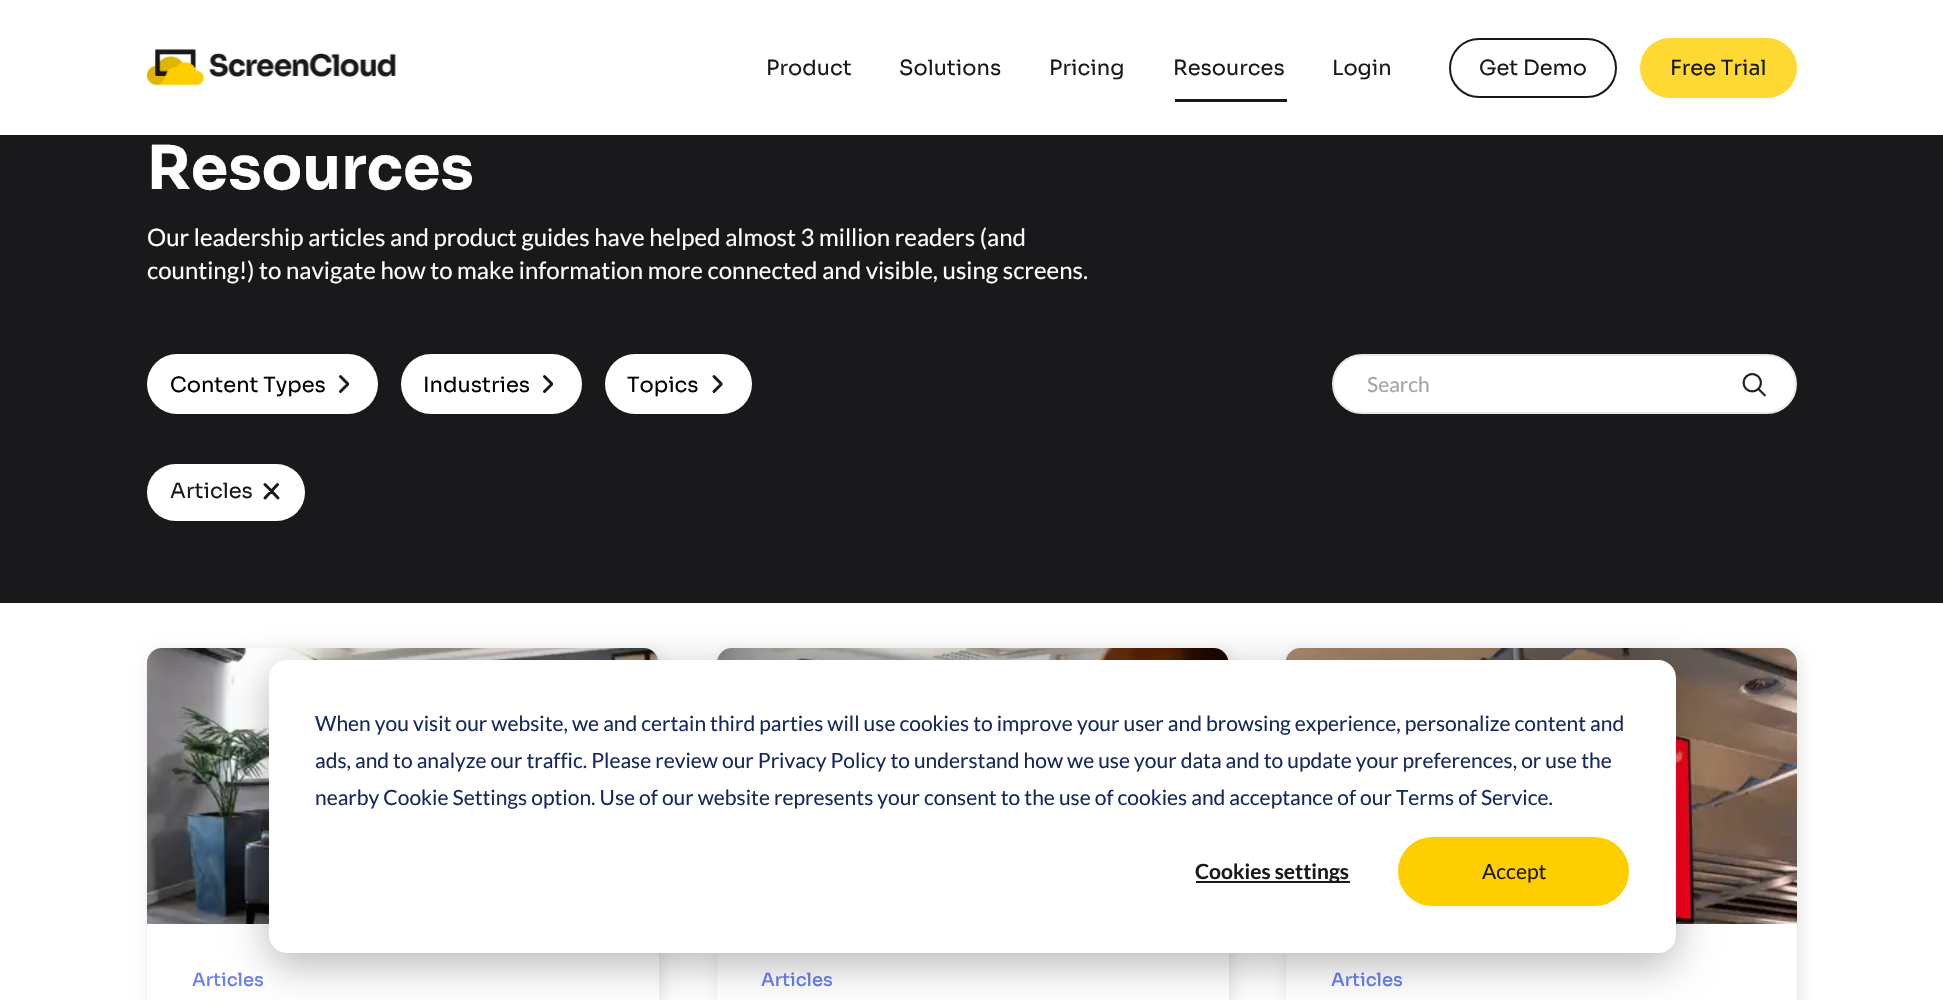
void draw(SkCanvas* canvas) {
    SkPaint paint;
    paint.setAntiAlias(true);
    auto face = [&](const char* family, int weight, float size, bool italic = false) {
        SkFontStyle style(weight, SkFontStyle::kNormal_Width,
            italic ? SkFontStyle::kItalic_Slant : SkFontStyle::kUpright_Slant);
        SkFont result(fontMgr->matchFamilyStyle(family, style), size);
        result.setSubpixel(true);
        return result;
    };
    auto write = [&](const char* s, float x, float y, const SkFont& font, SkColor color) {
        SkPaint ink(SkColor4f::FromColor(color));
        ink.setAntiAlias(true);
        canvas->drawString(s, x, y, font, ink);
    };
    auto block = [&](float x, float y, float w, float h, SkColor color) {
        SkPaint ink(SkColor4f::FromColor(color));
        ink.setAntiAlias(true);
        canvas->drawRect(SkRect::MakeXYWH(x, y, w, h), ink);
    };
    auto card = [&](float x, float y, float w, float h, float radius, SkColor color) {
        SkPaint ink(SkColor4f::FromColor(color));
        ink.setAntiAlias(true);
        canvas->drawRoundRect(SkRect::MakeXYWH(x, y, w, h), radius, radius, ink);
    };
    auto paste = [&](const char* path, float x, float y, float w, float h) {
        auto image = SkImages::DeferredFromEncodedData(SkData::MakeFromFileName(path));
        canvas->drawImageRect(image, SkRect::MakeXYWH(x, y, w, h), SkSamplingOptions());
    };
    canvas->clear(SK_ColorWHITE);
    block(0, 135, 1943, 468, SkColorSetRGB(25, 25, 27));
    paint.setColor(SkColorSetARGB(26, 0, 0, 0));
    paint.setMaskFilter(SkMaskFilter::MakeBlur(kNormal_SkBlurStyle, 7.5f));
    canvas->drawRect(SkRect::MakeXYWH(3, 3, 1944, 135), paint);
    paint.setMaskFilter(nullptr);
    block(0, 0, 1943, 135, SK_ColorWHITE);
    paste("pic1.png", 147, 49, 249, 37);
    auto kFont1 = face("Sora", 400, 21);
    write("Product", 766, 75, kFont1, SkColorSetRGB(25, 25, 27));
    write("Solutions", 899, 75, kFont1, SkColorSetRGB(25, 25, 27));
    write("Pricing", 1049, 75, kFont1, SkColorSetRGB(25, 25, 27));
    write("Resources", 1173, 75, kFont1, SkColorSetRGB(25, 25, 27));
    block(1175, 99, 112, 3, SkColorSetRGB(25, 25, 27));
    write("Login", 1332, 75, kFont1, SkColorSetRGB(25, 25, 27));
    paint.setStyle(SkPaint::kStroke_Style);
    paint.setStrokeWidth(2);
    paint.setColor(SkColorSetRGB(25, 25, 27));
    canvas->drawRoundRect(SkRect::MakeXYWH(1450, 39, 166, 58), 29, 29, paint);
    write("Get Demo", 1479, 75, kFont1, SkColorSetRGB(25, 25, 27));
    card(1640, 38, 157, 60, 30, SkColorSetRGB(254, 217, 51));
    write("Free Trial", 1670, 75, kFont1, SkColorSetRGB(25, 25, 27));
    auto kFont2 = face("Sora", 700, 60);
    write("Resources", 147, 189, kFont2, SK_ColorWHITE);
    auto kFont3 = face("Lato", 400, 24);
    write("Our leadership articles and product guides have helped almost 3 million readers (and", 147, 246, kFont3, SK_ColorWHITE);
    write("counting!) to navigate how to make information more connected and visible, using screens.", 147, 279, kFont3, SK_ColorWHITE);
    card(147, 354, 231, 60, 30, SK_ColorWHITE);
    write("Content Types", 170, 392, kFont1, SK_ColorBLACK);
    paint.setStrokeWidth(3);
    paint.setStrokeCap(SkPaint::kRound_Cap);
    canvas->drawPath(SkPathBuilder().moveTo(340.5f, 376.5f).lineTo(347.5f, 383.5f).lineTo(347.5f, 384.5f).lineTo(340.5f, 391.5f).detach(), paint);
    card(401, 354, 181, 60, 30, SK_ColorWHITE);
    write("Industries", 423, 392, kFont1, SK_ColorBLACK);
    canvas->drawPath(SkPathBuilder().moveTo(544.5f, 376.5f).lineTo(551.5f, 383.5f).lineTo(551.5f, 384.5f).lineTo(544.5f, 391.5f).detach(), paint);
    card(605, 354, 147, 60, 30, SK_ColorWHITE);
    write("Topics", 627, 392, kFont1, SK_ColorBLACK);
    canvas->drawPath(SkPathBuilder().moveTo(714, 376.5f).lineTo(721, 383.5f).lineTo(721, 384.5f).lineTo(714, 391.5f).detach(), paint);
    paint.setStyle(SkPaint::kFill_Style);
    paint.setColor(SK_ColorWHITE);
    canvas->drawRoundRect(SkRect::MakeXYWH(1333, 355, 463, 58), 29, 29, paint);
    paint.setStyle(SkPaint::kStroke_Style);
    paint.setStrokeWidth(2);
    paint.setStrokeCap(SkPaint::kButt_Cap);
    paint.setColor(SkColorSetRGB(232, 232, 232));
    canvas->drawRoundRect(SkRect::MakeXYWH(1333, 355, 463, 58), 29, 29, paint);
    auto kFont4 = face("Lato", 400, 21);
    write("Search", 1367, 392, kFont4, SkColorSetRGB(163, 163, 164));
    paste("pic2.png", 1742, 373, 24, 24);
    card(147, 464, 158, 57, 28.5f, SK_ColorWHITE);
    write("Articles", 170, 498, kFont1, SkColorSetRGB(25, 25, 27));
    paint.setStrokeWidth(3);
    paint.setStrokeCap(SkPaint::kRound_Cap);
    paint.setStrokeJoin(SkPaint::kRound_Join);
    paint.setColor(SkColorSetRGB(25, 25, 27));
    canvas->drawPath(SkPathBuilder().moveTo(277.5f, 484.5f).lineTo(271.5f, 491).moveTo(265, 498).lineTo(271.5f, 491).moveTo(271.5f, 491).lineTo(265, 484.5f).moveTo(271.5f, 491).lineTo(278, 498).detach(), paint);
    paint.setStyle(SkPaint::kFill_Style);
    paint.setColor(SkColorSetARGB(26, 0, 0, 0));
    paint.setMaskFilter(SkMaskFilter::MakeBlur(kNormal_SkBlurStyle, 7.5f));
    canvas->drawRoundRect(SkRect::MakeXYWH(150, 651, 512, 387), 15, 15, paint);
    paint.setMaskFilter(nullptr);
    card(147, 648, 512, 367, 15, SK_ColorWHITE);
    paint.setColor(SkColorSetRGB(232, 232, 232));
    canvas->drawPath(SkPathBuilder().moveTo(162, 648).lineTo(644, 648).cubicTo(652.5f, 648, 659, 654.5f, 659, 663).lineTo(659, 924).lineTo(147, 924).lineTo(147, 663).cubicTo(147, 654.5f, 153.5f, 648, 162, 648).close().detach(), paint);
    paste("pic3.png", 147, 648, 511, 276);
    auto kFont5 = face("Sora", 500, 18);
    write("Articles", 192, 986, kFont5, SkColorSetRGB(103, 126, 240));
    paint.setColor(SkColorSetARGB(26, 0, 0, 0));
    paint.setMaskFilter(SkMaskFilter::MakeBlur(kNormal_SkBlurStyle, 7.5f));
    canvas->drawRoundRect(SkRect::MakeXYWH(720, 651, 512, 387), 15, 15, paint);
    paint.setMaskFilter(nullptr);
    card(717, 648, 512, 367, 15, SK_ColorWHITE);
    paint.setColor(SkColorSetRGB(232, 232, 232));
    canvas->drawPath(SkPathBuilder().moveTo(732, 648).lineTo(1214, 648).cubicTo(1222.5f, 648, 1229, 654.5f, 1229, 663).lineTo(1229, 924).lineTo(717, 924).lineTo(717, 663).cubicTo(717, 654.5f, 723.5f, 648, 732, 648).close().detach(), paint);
    paste("pic4.png", 717, 648, 511, 12);
    write("Articles", 761, 986, kFont5, SkColorSetRGB(103, 126, 240));
    paint.setColor(SkColorSetARGB(26, 0, 0, 0));
    paint.setMaskFilter(SkMaskFilter::MakeBlur(kNormal_SkBlurStyle, 7.5f));
    canvas->drawRoundRect(SkRect::MakeXYWH(1289, 651, 511, 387), 15, 15, paint);
    paint.setMaskFilter(nullptr);
    card(1286, 648, 511, 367, 15, SK_ColorWHITE);
    paste("pic5.png", 1286, 648, 511, 276);
    write("Articles", 1331, 986, kFont5, SkColorSetRGB(103, 126, 240));
    paint.setColor(SkColorSetARGB(71, 0, 0, 0));
    paint.setMaskFilter(SkMaskFilter::MakeBlur(kNormal_SkBlurStyle, 21));
    canvas->drawRoundRect(SkRect::MakeXYWH(269, 672, 1407, 293), 18, 18, paint);
    paint.setMaskFilter(nullptr);
    card(269, 660, 1407, 293, 18, SK_ColorWHITE);
    write("When you visit our website, we and certain third parties will use cookies to improve your user and browsing experience, personalize content and", 315, 731, kFont4, SkColorSetRGB(21, 41, 90));
    write("ads, and to analyze our traffic. Please review our Privacy Policy to understand how we use your data and to update your preferences, or use the", 315, 768, kFont4, SkColorSetRGB(21, 41, 90));
    write("nearby Cookie Settings option. Use of our website represents your consent to the use of cookies and acceptance of our Terms of Service.", 315, 805, kFont4, SkColorSetRGB(21, 41, 90));
    block(1196, 881, 154, 2, SkColorSetRGB(25, 25, 27));
    auto kFont6 = face("Lato", 700, 21);
    write("Cookies settings", 1195, 879, kFont6, SkColorSetRGB(25, 25, 27));
    paint.setColor(SkColorSetRGB(254, 207, 0));
    canvas->drawRoundRect(SkRect::MakeXYWH(1399, 838, 229, 67), 33.5f, 33.5f, paint);
    paint.setStyle(SkPaint::kStroke_Style);
    paint.setStrokeWidth(2);
    paint.setStrokeCap(SkPaint::kButt_Cap);
    paint.setStrokeJoin(SkPaint::kMiter_Join);
    canvas->drawRoundRect(SkRect::MakeXYWH(1399, 838, 229, 67), 33.5f, 33.5f, paint);
    write("Accept", 1482, 879, kFont4, SkColorSetRGB(25, 25, 27));
}
